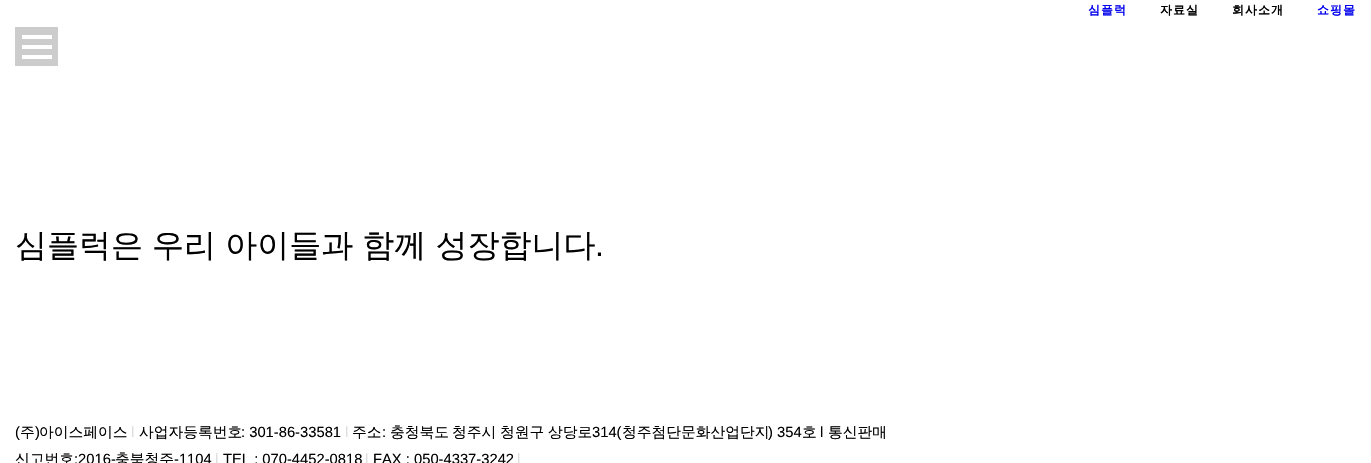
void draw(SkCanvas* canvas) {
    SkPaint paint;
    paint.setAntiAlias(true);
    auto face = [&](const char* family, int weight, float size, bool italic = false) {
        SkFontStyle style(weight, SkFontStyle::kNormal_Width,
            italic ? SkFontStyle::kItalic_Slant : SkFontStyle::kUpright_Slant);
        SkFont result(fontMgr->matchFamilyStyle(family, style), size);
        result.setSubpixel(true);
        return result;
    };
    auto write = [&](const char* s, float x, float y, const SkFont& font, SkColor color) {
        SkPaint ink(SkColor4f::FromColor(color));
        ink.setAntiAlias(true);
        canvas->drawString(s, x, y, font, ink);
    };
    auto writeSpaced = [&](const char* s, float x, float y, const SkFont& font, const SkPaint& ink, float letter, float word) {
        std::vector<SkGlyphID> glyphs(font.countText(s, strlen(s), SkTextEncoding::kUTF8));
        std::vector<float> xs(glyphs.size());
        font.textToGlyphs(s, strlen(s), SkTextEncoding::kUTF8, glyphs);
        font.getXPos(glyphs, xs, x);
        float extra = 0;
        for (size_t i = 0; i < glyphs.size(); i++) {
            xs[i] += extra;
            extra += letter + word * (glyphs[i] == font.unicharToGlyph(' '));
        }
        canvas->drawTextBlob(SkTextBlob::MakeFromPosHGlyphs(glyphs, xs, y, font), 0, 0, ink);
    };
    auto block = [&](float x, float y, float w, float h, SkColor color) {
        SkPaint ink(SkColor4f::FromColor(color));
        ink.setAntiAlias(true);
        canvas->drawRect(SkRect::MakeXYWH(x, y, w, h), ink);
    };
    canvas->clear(SK_ColorWHITE);
    auto kFont1 = face("WenQuanYi Zen Hei", 700, 12);
    paint.setColor(SkColorSetRGB(0, 0, 238));
    writeSpaced("심플럭", 1088, 14, kFont1, paint, 1, 0);
    paint.setColor(SK_ColorBLACK);
    writeSpaced("자료실", 1160, 14, kFont1, paint, 1, 0);
    writeSpaced("회사소개", 1232, 14, kFont1, paint, 1, 0);
    paint.setColor(SkColorSetRGB(0, 0, 238));
    writeSpaced("쇼핑몰", 1317, 14, kFont1, paint, 1, 0);
    block(15, 27, 43, 39, SkColorSetRGB(204, 204, 204));
    block(22, 55, 30, 4, SK_ColorWHITE);
    block(22, 45, 30, 4, SK_ColorWHITE);
    block(22, 35, 30, 4, SK_ColorWHITE);
    auto kFont2 = face("WenQuanYi Zen Hei", 500, 32);
    paint.setColor(SK_ColorBLACK);
    writeSpaced("심플럭은 우리 아이들과 함께 성장합니다", 15, 256, kFont2, paint, 0, -0.5f);
    auto kFont3 = face("Liberation Sans", 400, 32);
    write(".", 595, 256, kFont3, SK_ColorBLACK);
    auto kFont4 = face("Liberation Sans", 400, 14.75f);
    write("(", 15, 437, kFont4, SK_ColorBLACK);
    auto kFont5 = face("WenQuanYi Zen Hei", 500, 14.75f);
    write("주", 20, 437, kFont5, SK_ColorBLACK);
    write(")", 35, 437, kFont4, SK_ColorBLACK);
    write("아이스페이스", 39, 437, kFont5, SK_ColorBLACK);
    write("l", 131, 437, kFont4, SkColorSetRGB(222, 222, 222));
    write("사업자등록번호", 139, 437, kFont5, SK_ColorBLACK);
    write(": 301-86-33581", 241, 437, kFont4, SK_ColorBLACK);
    write("l", 345, 437, kFont4, SkColorSetRGB(222, 222, 222));
    write("주소", 352, 437, kFont5, SK_ColorBLACK);
    write(":", 382, 437, kFont4, SK_ColorBLACK);
    write("충청북도", 390, 437, kFont5, SK_ColorBLACK);
    write("청주시", 452, 437, kFont5, SK_ColorBLACK);
    write("청원구", 500, 437, kFont5, SK_ColorBLACK);
    write("상당로", 548, 437, kFont5, SK_ColorBLACK);
    write("314(", 592, 437, kFont4, SK_ColorBLACK);
    write("청주첨단문화산업단지", 622, 437, kFont5, SK_ColorBLACK);
    write(") 354", 768, 437, kFont4, SK_ColorBLACK);
    write("호", 802, 437, kFont5, SK_ColorBLACK);
    write("l", 820, 437, kFont4, SK_ColorBLACK);
    write("통신판매", 828, 437, kFont5, SK_ColorBLACK);
    write("신고번호", 15, 464, kFont5, SK_ColorBLACK);
    write(":2016-", 74, 464, kFont4, SK_ColorBLACK);
    write("충북청주", 115, 464, kFont5, SK_ColorBLACK);
    write("-1104", 174, 464, kFont4, SK_ColorBLACK);
    write("l", 215, 464, kFont4, SkColorSetRGB(222, 222, 222));
    write("TEL : 070-4452-0818", 223, 464, kFont4, SK_ColorBLACK);
    write("l", 365, 464, kFont4, SkColorSetRGB(222, 222, 222));
    write("FAX : 050-4337-3242", 373, 464, kFont4, SK_ColorBLACK);
    write("l", 517, 464, kFont4, SkColorSetRGB(222, 222, 222));
}
